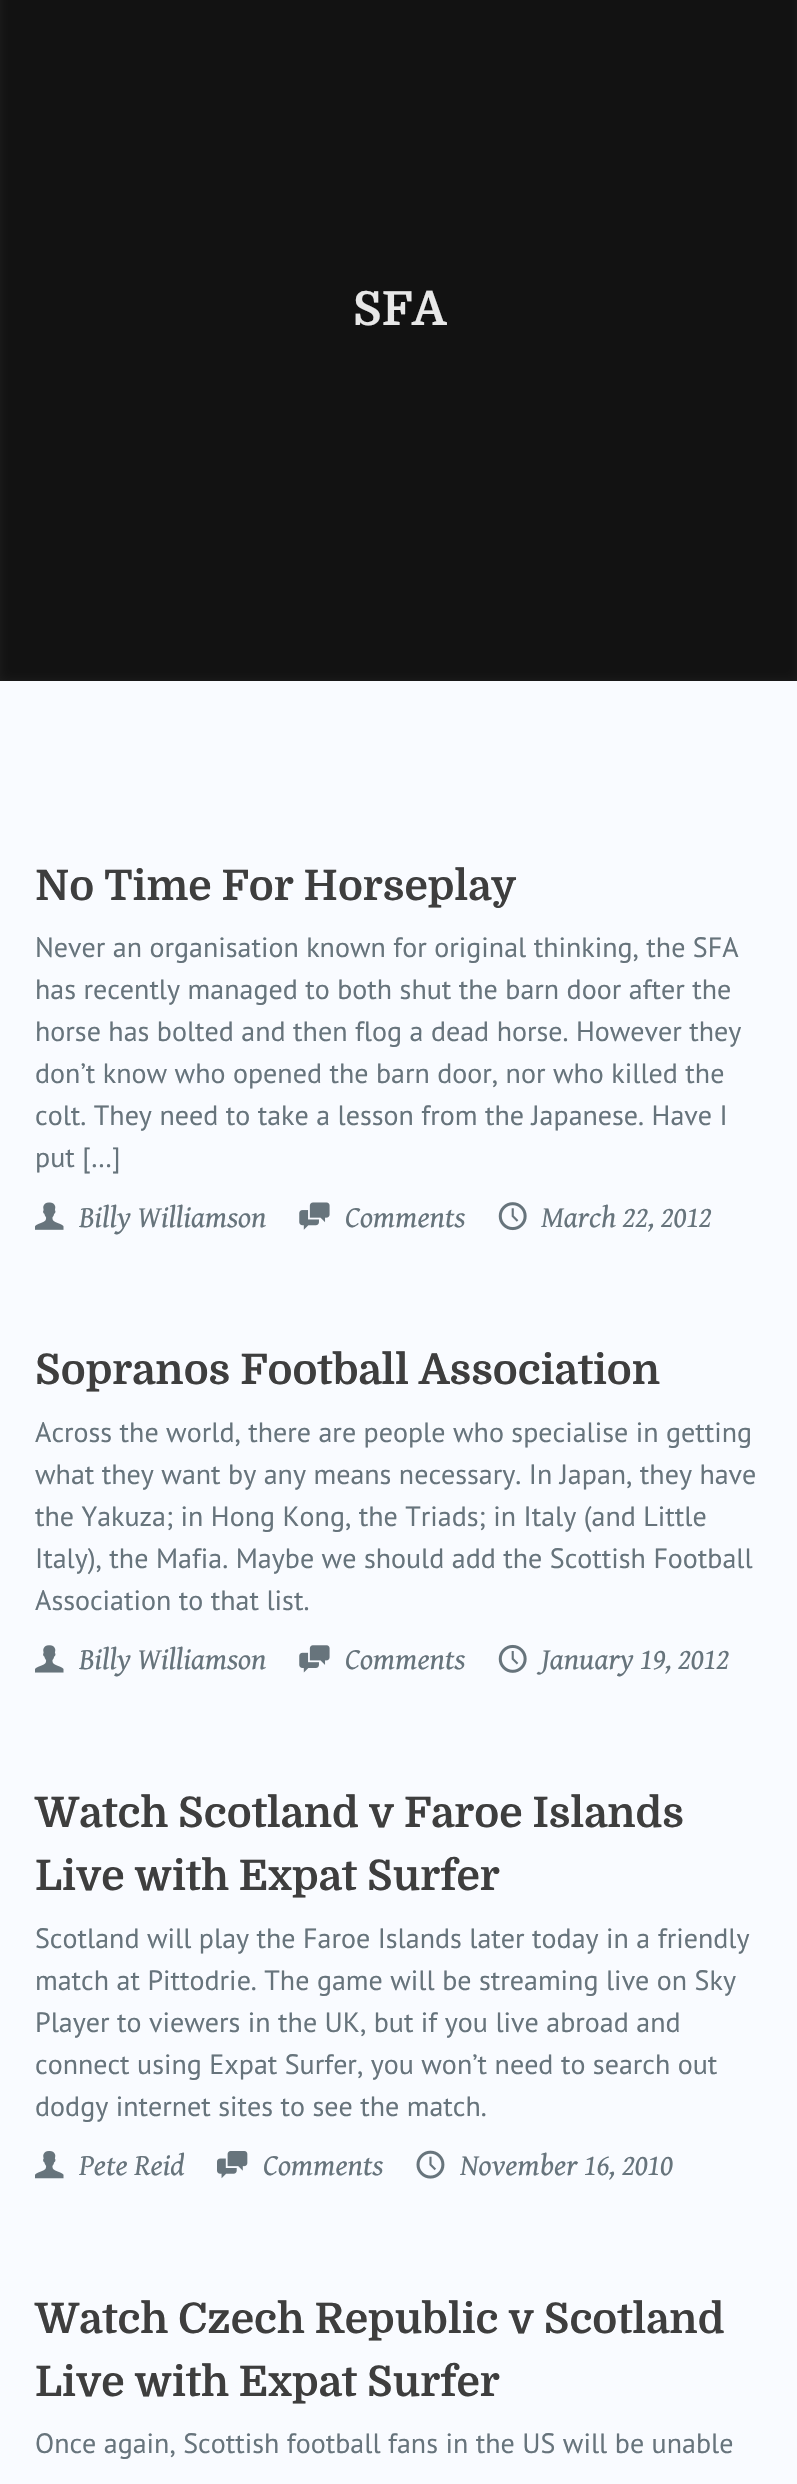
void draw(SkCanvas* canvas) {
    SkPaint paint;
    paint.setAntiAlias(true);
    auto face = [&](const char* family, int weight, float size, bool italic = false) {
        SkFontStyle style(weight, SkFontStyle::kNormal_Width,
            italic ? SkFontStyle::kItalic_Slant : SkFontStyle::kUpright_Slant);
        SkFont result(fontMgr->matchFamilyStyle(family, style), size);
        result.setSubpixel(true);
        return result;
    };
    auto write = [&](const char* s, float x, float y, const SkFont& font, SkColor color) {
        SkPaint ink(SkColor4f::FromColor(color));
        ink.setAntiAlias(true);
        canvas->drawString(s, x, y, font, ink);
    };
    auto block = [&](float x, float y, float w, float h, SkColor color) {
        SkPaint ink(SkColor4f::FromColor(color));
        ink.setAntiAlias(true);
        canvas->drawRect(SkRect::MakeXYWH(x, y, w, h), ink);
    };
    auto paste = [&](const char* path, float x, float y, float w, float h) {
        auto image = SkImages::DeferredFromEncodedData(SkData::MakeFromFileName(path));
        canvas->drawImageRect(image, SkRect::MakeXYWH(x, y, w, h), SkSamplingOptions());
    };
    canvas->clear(SkColorSetRGB(249, 251, 255));
    block(0, 0, 797, 681, SkColorSetRGB(30, 30, 30));
    canvas->save();
    canvas->clipRect(SkRect::MakeXYWH(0, 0, 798, 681));
    paint.setColor(SkColorSetARGB(102, 0, 0, 0));
    paint.setMaskFilter(SkMaskFilter::MakeBlur(kNormal_SkBlurStyle, 5));
    canvas->drawRect(SkRect::MakeXYWH(0, -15, 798, 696), paint);
    paint.setMaskFilter(nullptr);
    canvas->restore();
    auto kFont1 = face("Domine", 700, 47);
    write("SFA", 353, 325, kFont1, SkColorSetRGB(231, 231, 231));
    auto kFont2 = face("Domine", 700, 42);
    write("No Time For Horseplay", 35, 900, kFont2, SkColorSetRGB(62, 62, 62));
    auto kFont3 = face("PT Sans", 400, 28);
    write("Never an organisation known for original thinking, the SFA", 35, 957, kFont3, SkColorSetRGB(103, 116, 124));
    write("has recently managed to both shut the barn door after the", 35, 999, kFont3, SkColorSetRGB(103, 116, 124));
    write("horse has bolted and then flog a dead horse. However they", 35, 1041, kFont3, SkColorSetRGB(103, 116, 124));
    write("don’t know who opened the barn door, nor who killed the", 35, 1083, kFont3, SkColorSetRGB(103, 116, 124));
    write("colt. They need to take a lesson from the Japanese. Have I", 35, 1125, kFont3, SkColorSetRGB(103, 116, 124));
    write("put […]", 35, 1167, kFont3, SkColorSetRGB(103, 116, 124));
    paste("pic1.png", 35, 1202, 29, 28);
    auto kFont4 = face("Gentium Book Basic", 400, 30.25f, true);
    write("Billy Williamson", 79, 1227, kFont4, SkColorSetRGB(103, 116, 124));
    paste("pic2.png", 299, 1202, 31, 28);
    write("Comments", 345, 1227, kFont4, SkColorSetRGB(103, 116, 124));
    paste("pic3.png", 498, 1202, 29, 29);
    write("March 22, 2012", 541, 1227, kFont4, SkColorSetRGB(103, 116, 124));
    write("Sopranos Football Association", 35, 1384, kFont2, SkColorSetRGB(62, 62, 62));
    write("Across the world, there are people who specialise in getting", 35, 1442, kFont3, SkColorSetRGB(103, 116, 124));
    write("what they want by any means necessary. In Japan, they have", 35, 1484, kFont3, SkColorSetRGB(103, 116, 124));
    write("the Yakuza; in Hong Kong, the Triads; in Italy (and Little", 35, 1526, kFont3, SkColorSetRGB(103, 116, 124));
    write("Italy), the Mafia. Maybe we should add the Scottish Football", 35, 1568, kFont3, SkColorSetRGB(103, 116, 124));
    write("Association to that list.", 35, 1610, kFont3, SkColorSetRGB(103, 116, 124));
    paste("pic4.png", 35, 1645, 29, 28);
    write("Billy Williamson", 79, 1669, kFont4, SkColorSetRGB(103, 116, 124));
    paste("pic5.png", 299, 1645, 31, 28);
    write("Comments", 345, 1669, kFont4, SkColorSetRGB(103, 116, 124));
    paste("pic6.png", 498, 1644, 29, 29);
    write("January 19, 2012", 541, 1669, kFont4, SkColorSetRGB(103, 116, 124));
    write("Watch Scotland v Faroe Islands", 35, 1827, kFont2, SkColorSetRGB(62, 62, 62));
    write("Live with Expat Surfer", 35, 1890, kFont2, SkColorSetRGB(62, 62, 62));
    write("Scotland will play the Faroe Islands later today in a friendly", 35, 1948, kFont3, SkColorSetRGB(103, 116, 124));
    write("match at Pittodrie. The game will be streaming live on Sky", 35, 1990, kFont3, SkColorSetRGB(103, 116, 124));
    write("Player to viewers in the UK, but if you live abroad and", 35, 2032, kFont3, SkColorSetRGB(103, 116, 124));
    write("connect using Expat Surfer, you won’t need to search out", 35, 2074, kFont3, SkColorSetRGB(103, 116, 124));
    write("dodgy internet sites to see the match.", 35, 2116, kFont3, SkColorSetRGB(103, 116, 124));
    paste("pic7.png", 35, 2151, 29, 28);
    write("Pete Reid", 79, 2175, kFont4, SkColorSetRGB(103, 116, 124));
    paste("pic8.png", 217, 2151, 31, 28);
    write("Comments", 263, 2175, kFont4, SkColorSetRGB(103, 116, 124));
    paste("pic9.png", 416, 2150, 29, 29);
    write("November 16, 2010", 460, 2175, kFont4, SkColorSetRGB(103, 116, 124));
    write("Watch Czech Republic v Scotland", 35, 2333, kFont2, SkColorSetRGB(62, 62, 62));
    write("Live with Expat Surfer", 35, 2396, kFont2, SkColorSetRGB(62, 62, 62));
    write("Once again, Scottish football fans in the US will be unable", 35, 2453, kFont3, SkColorSetRGB(103, 116, 124));
}
